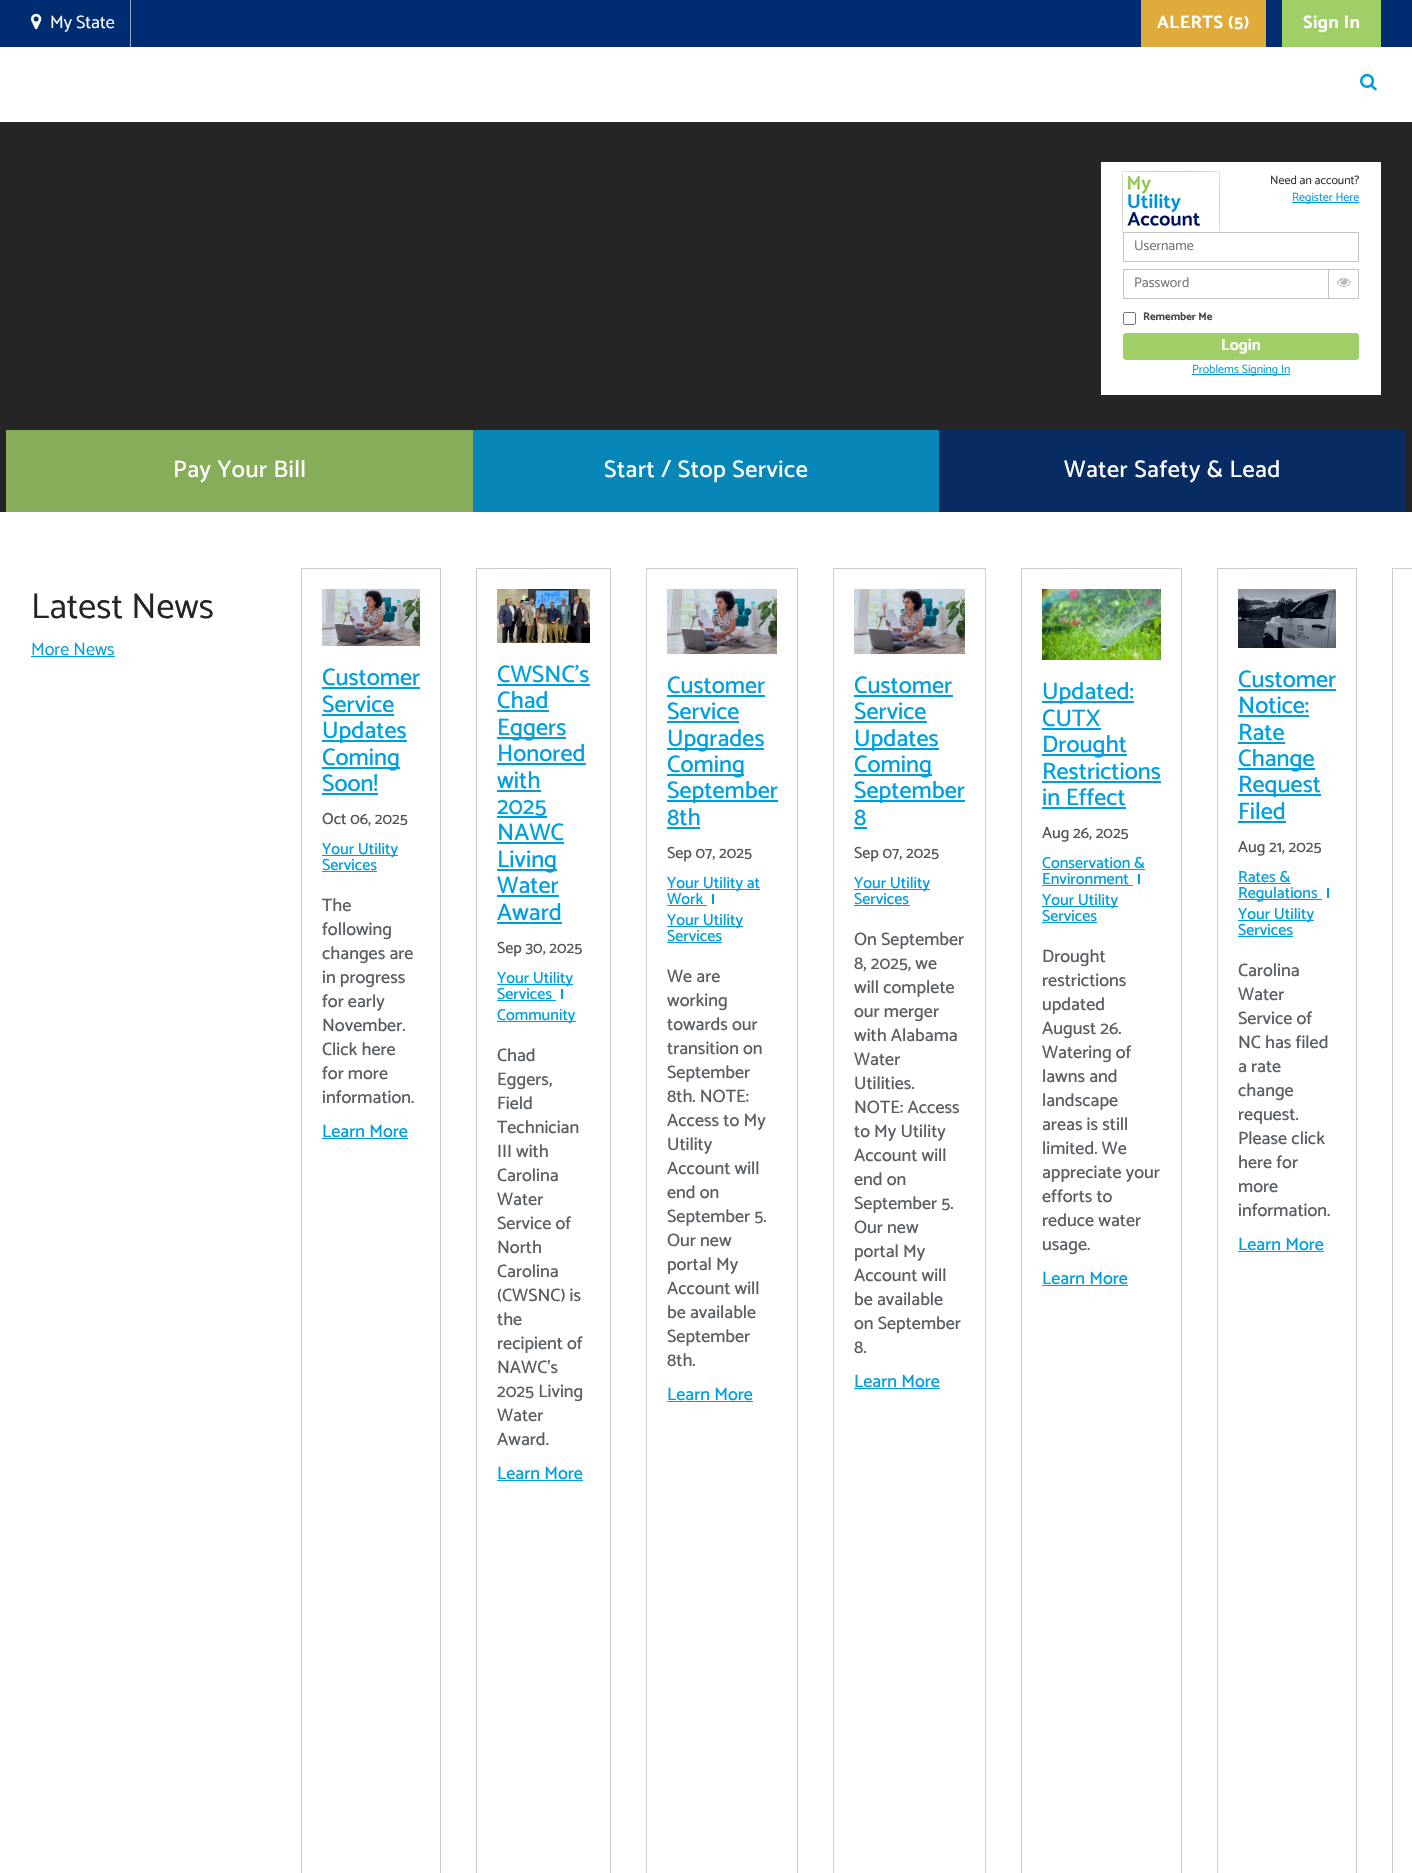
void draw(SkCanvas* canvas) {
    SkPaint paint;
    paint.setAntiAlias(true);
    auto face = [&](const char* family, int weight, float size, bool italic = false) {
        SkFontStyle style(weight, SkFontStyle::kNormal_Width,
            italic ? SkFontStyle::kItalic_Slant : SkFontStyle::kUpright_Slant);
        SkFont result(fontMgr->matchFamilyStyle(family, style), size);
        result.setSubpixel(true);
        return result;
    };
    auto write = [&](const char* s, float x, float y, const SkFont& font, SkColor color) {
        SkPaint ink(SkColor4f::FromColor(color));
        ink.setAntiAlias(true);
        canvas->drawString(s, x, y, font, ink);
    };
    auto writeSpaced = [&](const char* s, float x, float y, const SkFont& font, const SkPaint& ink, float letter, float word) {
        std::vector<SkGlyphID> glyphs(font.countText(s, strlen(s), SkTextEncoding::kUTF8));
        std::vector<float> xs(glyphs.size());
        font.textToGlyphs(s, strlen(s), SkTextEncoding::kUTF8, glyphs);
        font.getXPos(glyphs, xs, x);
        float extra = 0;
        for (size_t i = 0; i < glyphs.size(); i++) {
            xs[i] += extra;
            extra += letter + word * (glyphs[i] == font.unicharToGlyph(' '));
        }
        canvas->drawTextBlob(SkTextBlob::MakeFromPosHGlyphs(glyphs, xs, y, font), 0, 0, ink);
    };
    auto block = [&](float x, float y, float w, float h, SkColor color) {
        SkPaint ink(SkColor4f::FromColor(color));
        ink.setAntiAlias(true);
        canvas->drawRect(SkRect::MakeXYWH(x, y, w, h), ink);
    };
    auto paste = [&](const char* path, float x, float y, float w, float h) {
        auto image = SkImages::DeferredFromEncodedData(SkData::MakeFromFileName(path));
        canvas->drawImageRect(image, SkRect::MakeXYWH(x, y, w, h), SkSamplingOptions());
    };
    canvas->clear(SK_ColorWHITE);
    block(0, 0, 1412, 47, SkColorSetRGB(0, 45, 113));
    block(130, 0, 1, 47, SkColorSetRGB(153, 171, 198));
    paste("pic1.png", 31, 13, 11, 17);
    auto kFont1 = face("Catamaran", 400, 18);
    write("My State", 50, 28, kFont1, SK_ColorWHITE);
    block(1141, 0, 125, 47, SkColorSetRGB(223, 171, 59));
    auto kFont2 = face("Catamaran", 700, 18);
    paint.setColor(SK_ColorWHITE);
    writeSpaced("ALERTS (5)", 1157, 28, kFont2, paint, 0.5f, 0);
    block(1282, 0, 99, 47, SkColorSetRGB(160, 207, 103));
    writeSpaced("Sign In", 1303, 28, kFont2, paint, 0.5f, 0);
    paste("pic2.png", 1360, 73, 17, 18);
    block(0, 122, 1412, 390, SkColorSetRGB(37, 37, 37));
    block(1101, 162, 280, 233, SK_ColorWHITE);
    paste("pic3.png", 1122, 171, 98, 62);
    auto kFont3 = face("Catamaran", 400, 12);
    write("Need an account?", 1270, 184, kFont3, SkColorSetRGB(51, 51, 51));
    block(1292, 202, 67, 1, SkColorSetRGB(0, 159, 223));
    write("Register Here", 1292, 201, kFont3, SkColorSetRGB(0, 159, 223));
    paint.setStyle(SkPaint::kStroke_Style);
    paint.setStrokeWidth(1);
    paint.setColor(SkColorSetRGB(195, 195, 195));
    canvas->drawRect(SkRect::MakeXYWH(1123.5f, 232.5f, 235, 29), paint);
    auto kFont4 = face("Catamaran", 400, 14);
    write("Username", 1134, 250, kFont4, SkColorSetRGB(117, 117, 117));
    canvas->drawRect(SkRect::MakeXYWH(1123.5f, 269.5f, 205, 29), paint);
    write("Password", 1134, 287, kFont4, SkColorSetRGB(117, 117, 117));
    block(1329, 269, 30, 1, SkColorSetRGB(195, 195, 195));
    block(1358, 269, 1, 30, SkColorSetRGB(195, 195, 195));
    block(1329, 298, 30, 1, SkColorSetRGB(195, 195, 195));
    paste("pic4.png", 1337, 278, 14, 9);
    paint.setColor(SkColorSetRGB(118, 118, 118));
    canvas->drawRoundRect(SkRect::MakeXYWH(1123.5f, 312.5f, 12, 12), 1.5f, 1.5f, paint);
    auto kFont5 = face("Catamaran", 700, 11);
    write("Remember Me", 1143, 320, kFont5, SkColorSetRGB(70, 70, 70));
    paint.setStyle(SkPaint::kFill_Style);
    paint.setColor(SkColorSetRGB(160, 207, 103));
    canvas->drawRoundRect(SkRect::MakeXYWH(1123.5f, 333.5f, 235, 26), 2.5f, 2.5f, paint);
    paint.setStyle(SkPaint::kStroke_Style);
    canvas->drawRoundRect(SkRect::MakeXYWH(1123.5f, 333.5f, 235, 26), 2.5f, 2.5f, paint);
    auto kFont6 = face("Catamaran", 700, 16);
    write("Login", 1221, 350, kFont6, SK_ColorWHITE);
    block(1192, 374, 98, 1, SkColorSetRGB(0, 159, 223));
    write("Problems Signing In", 1192, 373, kFont3, SkColorSetRGB(0, 159, 223));
    block(6, 430, 467, 82, SkColorSetRGB(135, 173, 90));
    auto kFont7 = face("Catamaran", 500, 24);
    paint.setStyle(SkPaint::kFill_Style);
    paint.setColor(SK_ColorWHITE);
    writeSpaced("Pay Your Bill", 173, 477, kFont7, paint, 0.5f, 0);
    block(473, 430, 466, 82, SkColorSetRGB(7, 135, 183));
    writeSpaced("Start / Stop Service", 604, 477, kFont7, paint, 0.5f, 0);
    block(939, 430, 467, 82, SkColorSetRGB(7, 43, 99));
    writeSpaced("Water Safety & Lead", 1064, 477, kFont7, paint, 0.5f, 0);
    auto kFont8 = face("Catamaran", 400, 36);
    write("Latest News", 31, 618, kFont8, SkColorSetRGB(37, 37, 37));
    write("More News", 31, 655, kFont1, SkColorSetRGB(0, 159, 223));
    block(31, 656, 84, 1, SkColorSetRGB(0, 159, 223));
    paint.setStyle(SkPaint::kStroke_Style);
    paint.setColor(SkColorSetRGB(204, 204, 204));
    canvas->drawRect(SkRect::MakeXYWH(301.5f, 568.5f, 139, 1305), paint);
    paste("pic5.png", 322, 589, 98, 57);
    write("Customer", 322, 685, kFont7, SkColorSetRGB(0, 159, 223));
    block(322, 687, 98, 2, SkColorSetRGB(0, 159, 220));
    write("Service", 322, 712, kFont7, SkColorSetRGB(0, 159, 223));
    block(322, 714, 72, 2, SkColorSetRGB(0, 159, 220));
    block(322, 740, 85, 2, SkColorSetRGB(0, 159, 220));
    write("Updates", 322, 738, kFont7, SkColorSetRGB(0, 159, 223));
    block(322, 767, 78, 2, SkColorSetRGB(0, 159, 220));
    write("Coming", 322, 765, kFont7, SkColorSetRGB(0, 159, 223));
    write("Soon!", 322, 791, kFont7, SkColorSetRGB(0, 159, 223));
    block(322, 793, 56, 2, SkColorSetRGB(0, 159, 220));
    auto kFont9 = face("Catamaran", 500, 16);
    write("Oct 06, 2025", 322, 824, kFont9, SkColorSetRGB(85, 85, 85));
    block(322, 855, 76, 1, SkColorSetRGB(0, 159, 220));
    write("Your Utility", 322, 854, kFont9, SkColorSetRGB(0, 159, 223));
    write("Services", 322, 870, kFont9, SkColorSetRGB(0, 159, 223));
    block(322, 871, 55, 1, SkColorSetRGB(0, 159, 220));
    auto kFont10 = face("Catamaran", 500, 18);
    write("The", 322, 911, kFont10, SkColorSetRGB(90, 95, 100));
    write("following", 322, 935, kFont10, SkColorSetRGB(90, 95, 100));
    write("changes are", 322, 959, kFont10, SkColorSetRGB(90, 95, 100));
    write("in progress", 322, 983, kFont10, SkColorSetRGB(90, 95, 100));
    write("for early", 322, 1007, kFont10, SkColorSetRGB(90, 95, 100));
    write("November.", 322, 1031, kFont10, SkColorSetRGB(90, 95, 100));
    write("Click here", 322, 1055, kFont10, SkColorSetRGB(90, 95, 100));
    write("for more", 322, 1079, kFont10, SkColorSetRGB(90, 95, 100));
    write("information.", 322, 1103, kFont10, SkColorSetRGB(90, 95, 100));
    write("Learn More", 322, 1137, kFont10, SkColorSetRGB(0, 159, 223));
    block(322, 1138, 86, 1, SkColorSetRGB(0, 159, 223));
    canvas->drawRect(SkRect::MakeXYWH(476.5f, 568.5f, 134, 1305), paint);
    paste("pic6.png", 497, 589, 93, 54);
    write("CWSNC’s", 497, 682, kFont7, SkColorSetRGB(0, 159, 223));
    block(497, 684, 93, 2, SkColorSetRGB(0, 159, 220));
    write("Chad", 497, 708, kFont7, SkColorSetRGB(0, 159, 223));
    block(497, 710, 52, 2, SkColorSetRGB(0, 159, 220));
    block(497, 737, 69, 2, SkColorSetRGB(0, 159, 220));
    write("Eggers", 497, 735, kFont7, SkColorSetRGB(0, 159, 223));
    write("Honored", 497, 761, kFont7, SkColorSetRGB(0, 159, 223));
    block(497, 763, 89, 2, SkColorSetRGB(0, 159, 220));
    write("with", 497, 788, kFont7, SkColorSetRGB(0, 159, 223));
    block(497, 790, 44, 2, SkColorSetRGB(0, 159, 220));
    write("2025", 497, 814, kFont7, SkColorSetRGB(0, 159, 223));
    block(497, 816, 50, 2, SkColorSetRGB(0, 159, 220));
    write("NAWC", 497, 840, kFont7, SkColorSetRGB(0, 159, 223));
    block(497, 842, 67, 2, SkColorSetRGB(0, 159, 220));
    block(497, 869, 60, 2, SkColorSetRGB(0, 159, 220));
    write("Living", 497, 867, kFont7, SkColorSetRGB(0, 159, 223));
    write("Water", 497, 893, kFont7, SkColorSetRGB(0, 159, 223));
    block(497, 895, 62, 2, SkColorSetRGB(0, 159, 220));
    write("Award", 497, 920, kFont7, SkColorSetRGB(0, 159, 223));
    block(497, 922, 65, 2, SkColorSetRGB(0, 159, 220));
    write("Sep 30, 2025", 497, 953, kFont9, SkColorSetRGB(85, 85, 85));
    block(497, 984, 76, 1, SkColorSetRGB(0, 159, 220));
    write("Your Utility", 497, 983, kFont9, SkColorSetRGB(0, 159, 223));
    write("Services", 497, 999, kFont9, SkColorSetRGB(0, 159, 223));
    block(497, 1000, 59, 1, SkColorSetRGB(0, 159, 220));
    block(561, 989, 2, 10, SkColorSetRGB(0, 159, 220));
    block(497, 1021, 79, 1, SkColorSetRGB(0, 159, 220));
    write("Community", 497, 1020, kFont9, SkColorSetRGB(0, 159, 223));
    write("Chad", 497, 1061, kFont10, SkColorSetRGB(90, 95, 100));
    write("Eggers,", 497, 1085, kFont10, SkColorSetRGB(90, 95, 100));
    write("Field", 497, 1109, kFont10, SkColorSetRGB(90, 95, 100));
    write("Technician", 497, 1133, kFont10, SkColorSetRGB(90, 95, 100));
    write("III with", 497, 1157, kFont10, SkColorSetRGB(90, 95, 100));
    write("Carolina", 497, 1181, kFont10, SkColorSetRGB(90, 95, 100));
    write("Water", 497, 1205, kFont10, SkColorSetRGB(90, 95, 100));
    write("Service of", 497, 1229, kFont10, SkColorSetRGB(90, 95, 100));
    write("North", 497, 1253, kFont10, SkColorSetRGB(90, 95, 100));
    write("Carolina", 497, 1277, kFont10, SkColorSetRGB(90, 95, 100));
    write("(CWSNC) is", 497, 1301, kFont10, SkColorSetRGB(90, 95, 100));
    write("the", 497, 1325, kFont10, SkColorSetRGB(90, 95, 100));
    write("recipient of", 497, 1349, kFont10, SkColorSetRGB(90, 95, 100));
    write("NAWC's", 497, 1373, kFont10, SkColorSetRGB(90, 95, 100));
    write("2025 Living", 497, 1397, kFont10, SkColorSetRGB(90, 95, 100));
    write("Water", 497, 1421, kFont10, SkColorSetRGB(90, 95, 100));
    write("Award.", 497, 1445, kFont10, SkColorSetRGB(90, 95, 100));
    write("Learn More", 497, 1479, kFont10, SkColorSetRGB(0, 159, 223));
    block(497, 1480, 86, 1, SkColorSetRGB(0, 159, 223));
    canvas->drawRect(SkRect::MakeXYWH(646.5f, 568.5f, 151, 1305), paint);
    paste("pic7.png", 667, 589, 110, 65);
    write("Customer", 667, 693, kFont7, SkColorSetRGB(0, 159, 223));
    block(667, 695, 98, 2, SkColorSetRGB(0, 159, 220));
    write("Service", 667, 719, kFont7, SkColorSetRGB(0, 159, 223));
    block(667, 721, 72, 2, SkColorSetRGB(0, 159, 220));
    block(667, 748, 97, 2, SkColorSetRGB(0, 159, 220));
    write("Upgrades", 667, 746, kFont7, SkColorSetRGB(0, 159, 223));
    block(667, 774, 77, 2, SkColorSetRGB(0, 159, 220));
    write("Coming", 667, 772, kFont7, SkColorSetRGB(0, 159, 223));
    block(667, 800, 111, 2, SkColorSetRGB(0, 159, 220));
    write("September", 667, 798, kFont7, SkColorSetRGB(0, 159, 223));
    write("8th", 667, 825, kFont7, SkColorSetRGB(0, 159, 223));
    block(667, 827, 33, 2, SkColorSetRGB(0, 159, 220));
    write("Sep 07, 2025", 667, 858, kFont9, SkColorSetRGB(85, 85, 85));
    block(667, 889, 93, 1, SkColorSetRGB(0, 159, 220));
    write("Your Utility at", 667, 888, kFont9, SkColorSetRGB(0, 159, 223));
    write("Work", 667, 904, kFont9, SkColorSetRGB(0, 159, 223));
    block(667, 905, 40, 1, SkColorSetRGB(0, 159, 220));
    block(712, 894, 2, 10, SkColorSetRGB(0, 159, 220));
    block(667, 926, 76, 1, SkColorSetRGB(0, 159, 220));
    write("Your Utility", 667, 925, kFont9, SkColorSetRGB(0, 159, 223));
    write("Services", 667, 941, kFont9, SkColorSetRGB(0, 159, 223));
    block(667, 942, 55, 1, SkColorSetRGB(0, 159, 220));
    write("We are", 667, 982, kFont10, SkColorSetRGB(90, 95, 100));
    write("working", 667, 1006, kFont10, SkColorSetRGB(90, 95, 100));
    write("towards our", 667, 1030, kFont10, SkColorSetRGB(90, 95, 100));
    write("transition on", 667, 1054, kFont10, SkColorSetRGB(90, 95, 100));
    write("September", 667, 1078, kFont10, SkColorSetRGB(90, 95, 100));
    write("8th. NOTE:", 667, 1102, kFont10, SkColorSetRGB(90, 95, 100));
    write("Access to My", 667, 1126, kFont10, SkColorSetRGB(90, 95, 100));
    write("Utility", 667, 1150, kFont10, SkColorSetRGB(90, 95, 100));
    write("Account will", 667, 1174, kFont10, SkColorSetRGB(90, 95, 100));
    write("end on", 667, 1198, kFont10, SkColorSetRGB(90, 95, 100));
    write("September 5.", 667, 1222, kFont10, SkColorSetRGB(90, 95, 100));
    write("Our new", 667, 1246, kFont10, SkColorSetRGB(90, 95, 100));
    write("portal My", 667, 1270, kFont10, SkColorSetRGB(90, 95, 100));
    write("Account will", 667, 1294, kFont10, SkColorSetRGB(90, 95, 100));
    write("be available", 667, 1318, kFont10, SkColorSetRGB(90, 95, 100));
    write("September", 667, 1342, kFont10, SkColorSetRGB(90, 95, 100));
    write("8th.", 667, 1366, kFont10, SkColorSetRGB(90, 95, 100));
    write("Learn More", 667, 1400, kFont10, SkColorSetRGB(0, 159, 223));
    block(667, 1401, 86, 1, SkColorSetRGB(0, 159, 223));
    canvas->drawRect(SkRect::MakeXYWH(833.5f, 568.5f, 152, 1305), paint);
    paste("pic8.png", 854, 589, 111, 65);
    write("Customer", 854, 693, kFont7, SkColorSetRGB(0, 159, 223));
    block(854, 695, 99, 2, SkColorSetRGB(0, 159, 220));
    write("Service", 854, 719, kFont7, SkColorSetRGB(0, 159, 223));
    block(854, 721, 73, 2, SkColorSetRGB(0, 159, 220));
    block(854, 748, 85, 2, SkColorSetRGB(0, 159, 220));
    write("Updates", 854, 746, kFont7, SkColorSetRGB(0, 159, 223));
    block(854, 774, 78, 2, SkColorSetRGB(0, 159, 220));
    write("Coming", 854, 772, kFont7, SkColorSetRGB(0, 159, 223));
    block(854, 800, 111, 2, SkColorSetRGB(0, 159, 220));
    write("September", 854, 798, kFont7, SkColorSetRGB(0, 159, 223));
    write("8", 854, 825, kFont7, SkColorSetRGB(0, 159, 223));
    block(854, 827, 13, 2, SkColorSetRGB(0, 159, 220));
    write("Sep 07, 2025", 854, 858, kFont9, SkColorSetRGB(85, 85, 85));
    block(854, 889, 76, 1, SkColorSetRGB(0, 159, 220));
    write("Your Utility", 854, 888, kFont9, SkColorSetRGB(0, 159, 223));
    write("Services", 854, 904, kFont9, SkColorSetRGB(0, 159, 223));
    block(854, 905, 56, 1, SkColorSetRGB(0, 159, 220));
    write("On September", 854, 945, kFont10, SkColorSetRGB(90, 95, 100));
    write("8, 2025, we", 854, 969, kFont10, SkColorSetRGB(90, 95, 100));
    write("will complete", 854, 993, kFont10, SkColorSetRGB(90, 95, 100));
    write("our merger", 854, 1017, kFont10, SkColorSetRGB(90, 95, 100));
    write("with Alabama", 854, 1041, kFont10, SkColorSetRGB(90, 95, 100));
    write("Water", 854, 1065, kFont10, SkColorSetRGB(90, 95, 100));
    write("Utilities.", 854, 1089, kFont10, SkColorSetRGB(90, 95, 100));
    write("NOTE: Access", 854, 1113, kFont10, SkColorSetRGB(90, 95, 100));
    write("to My Utility", 854, 1137, kFont10, SkColorSetRGB(90, 95, 100));
    write("Account will", 854, 1161, kFont10, SkColorSetRGB(90, 95, 100));
    write("end on", 854, 1185, kFont10, SkColorSetRGB(90, 95, 100));
    write("September 5.", 854, 1209, kFont10, SkColorSetRGB(90, 95, 100));
    write("Our new", 854, 1233, kFont10, SkColorSetRGB(90, 95, 100));
    write("portal My", 854, 1257, kFont10, SkColorSetRGB(90, 95, 100));
    write("Account will", 854, 1281, kFont10, SkColorSetRGB(90, 95, 100));
    write("be available", 854, 1305, kFont10, SkColorSetRGB(90, 95, 100));
    write("on September", 854, 1329, kFont10, SkColorSetRGB(90, 95, 100));
    write("8.", 854, 1353, kFont10, SkColorSetRGB(90, 95, 100));
    write("Learn More", 854, 1387, kFont10, SkColorSetRGB(0, 159, 223));
    block(854, 1388, 86, 1, SkColorSetRGB(0, 159, 223));
    canvas->drawRect(SkRect::MakeXYWH(1021.5f, 568.5f, 160, 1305), paint);
    paste("pic9.png", 1042, 589, 119, 71);
    block(1042, 701, 92, 2, SkColorSetRGB(0, 159, 220));
    write("Updated:", 1042, 699, kFont7, SkColorSetRGB(0, 159, 223));
    write("CUTX", 1042, 726, kFont7, SkColorSetRGB(0, 159, 223));
    block(1042, 728, 59, 2, SkColorSetRGB(0, 159, 220));
    block(1042, 754, 85, 2, SkColorSetRGB(0, 159, 220));
    write("Drought", 1042, 752, kFont7, SkColorSetRGB(0, 159, 223));
    write("Restrictions", 1042, 779, kFont7, SkColorSetRGB(0, 159, 223));
    block(1042, 781, 119, 2, SkColorSetRGB(0, 159, 220));
    write("in Effect", 1042, 805, kFont7, SkColorSetRGB(0, 159, 223));
    block(1042, 807, 84, 2, SkColorSetRGB(0, 159, 220));
    write("Aug 26, 2025", 1042, 838, kFont9, SkColorSetRGB(85, 85, 85));
    write("Conservation &", 1042, 868, kFont9, SkColorSetRGB(0, 159, 223));
    block(1042, 869, 103, 1, SkColorSetRGB(0, 159, 220));
    write("Environment", 1042, 884, kFont9, SkColorSetRGB(0, 159, 223));
    block(1042, 885, 91, 1, SkColorSetRGB(0, 159, 220));
    block(1138, 874, 2, 10, SkColorSetRGB(0, 159, 220));
    block(1042, 906, 76, 1, SkColorSetRGB(0, 159, 220));
    write("Your Utility", 1042, 905, kFont9, SkColorSetRGB(0, 159, 223));
    write("Services", 1042, 921, kFont9, SkColorSetRGB(0, 159, 223));
    block(1042, 922, 55, 1, SkColorSetRGB(0, 159, 220));
    write("Drought", 1042, 962, kFont10, SkColorSetRGB(90, 95, 100));
    write("restrictions", 1042, 986, kFont10, SkColorSetRGB(90, 95, 100));
    write("updated", 1042, 1010, kFont10, SkColorSetRGB(90, 95, 100));
    write("August 26.", 1042, 1034, kFont10, SkColorSetRGB(90, 95, 100));
    write("Watering of", 1042, 1058, kFont10, SkColorSetRGB(90, 95, 100));
    write("lawns and", 1042, 1082, kFont10, SkColorSetRGB(90, 95, 100));
    write("landscape", 1042, 1106, kFont10, SkColorSetRGB(90, 95, 100));
    write("areas is still", 1042, 1130, kFont10, SkColorSetRGB(90, 95, 100));
    write("limited. We", 1042, 1154, kFont10, SkColorSetRGB(90, 95, 100));
    write("appreciate your", 1042, 1178, kFont10, SkColorSetRGB(90, 95, 100));
    write("efforts to", 1042, 1202, kFont10, SkColorSetRGB(90, 95, 100));
    write("reduce water", 1042, 1226, kFont10, SkColorSetRGB(90, 95, 100));
    write("usage.", 1042, 1250, kFont10, SkColorSetRGB(90, 95, 100));
    write("Learn More", 1042, 1284, kFont10, SkColorSetRGB(0, 159, 223));
    block(1042, 1285, 86, 1, SkColorSetRGB(0, 159, 223));
    canvas->drawRect(SkRect::MakeXYWH(1217.5f, 568.5f, 139, 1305), paint);
    paste("pic10.png", 1238, 589, 98, 59);
    write("Customer", 1238, 687, kFont7, SkColorSetRGB(0, 159, 223));
    block(1238, 689, 98, 2, SkColorSetRGB(0, 159, 220));
    write("Notice:", 1238, 713, kFont7, SkColorSetRGB(0, 159, 223));
    block(1238, 715, 71, 2, SkColorSetRGB(0, 159, 220));
    write("Rate", 1238, 740, kFont7, SkColorSetRGB(0, 159, 223));
    block(1238, 742, 47, 2, SkColorSetRGB(0, 159, 220));
    block(1238, 768, 77, 2, SkColorSetRGB(0, 159, 220));
    write("Change", 1238, 766, kFont7, SkColorSetRGB(0, 159, 223));
    block(1238, 794, 83, 2, SkColorSetRGB(0, 159, 220));
    write("Request", 1238, 792, kFont7, SkColorSetRGB(0, 159, 223));
    write("Filed", 1238, 819, kFont7, SkColorSetRGB(0, 159, 223));
    block(1238, 821, 48, 2, SkColorSetRGB(0, 159, 220));
    write("Aug 21, 2025", 1238, 852, kFont9, SkColorSetRGB(85, 85, 85));
    write("Rates &", 1238, 882, kFont9, SkColorSetRGB(0, 159, 223));
    block(1238, 883, 53, 1, SkColorSetRGB(0, 159, 220));
    block(1238, 899, 84, 1, SkColorSetRGB(0, 159, 220));
    write("Regulations", 1238, 898, kFont9, SkColorSetRGB(0, 159, 223));
    block(1327, 888, 2, 10, SkColorSetRGB(0, 159, 220));
    block(1238, 920, 76, 1, SkColorSetRGB(0, 159, 220));
    write("Your Utility", 1238, 919, kFont9, SkColorSetRGB(0, 159, 223));
    write("Services", 1238, 935, kFont9, SkColorSetRGB(0, 159, 223));
    block(1238, 936, 55, 1, SkColorSetRGB(0, 159, 220));
    write("Carolina", 1238, 976, kFont10, SkColorSetRGB(90, 95, 100));
    write("Water", 1238, 1000, kFont10, SkColorSetRGB(90, 95, 100));
    write("Service of", 1238, 1024, kFont10, SkColorSetRGB(90, 95, 100));
    write("NC has filed", 1238, 1048, kFont10, SkColorSetRGB(90, 95, 100));
    write("a rate", 1238, 1072, kFont10, SkColorSetRGB(90, 95, 100));
    write("change", 1238, 1096, kFont10, SkColorSetRGB(90, 95, 100));
    write("request.", 1238, 1120, kFont10, SkColorSetRGB(90, 95, 100));
    write("Please click", 1238, 1144, kFont10, SkColorSetRGB(90, 95, 100));
    write("here for", 1238, 1168, kFont10, SkColorSetRGB(90, 95, 100));
    write("more", 1238, 1192, kFont10, SkColorSetRGB(90, 95, 100));
    write("information.", 1238, 1216, kFont10, SkColorSetRGB(90, 95, 100));
    write("Learn More", 1238, 1250, kFont10, SkColorSetRGB(0, 159, 223));
    block(1238, 1251, 86, 1, SkColorSetRGB(0, 159, 223));
    canvas->drawRect(SkRect::MakeXYWH(1392.5f, 568.5f, 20, 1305), paint);
}
